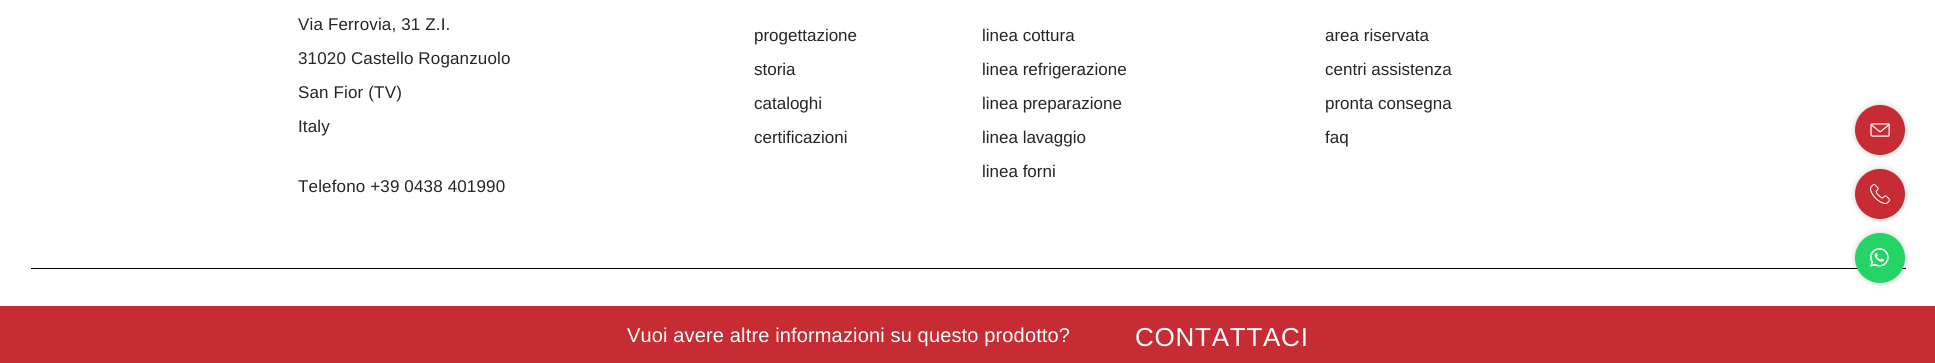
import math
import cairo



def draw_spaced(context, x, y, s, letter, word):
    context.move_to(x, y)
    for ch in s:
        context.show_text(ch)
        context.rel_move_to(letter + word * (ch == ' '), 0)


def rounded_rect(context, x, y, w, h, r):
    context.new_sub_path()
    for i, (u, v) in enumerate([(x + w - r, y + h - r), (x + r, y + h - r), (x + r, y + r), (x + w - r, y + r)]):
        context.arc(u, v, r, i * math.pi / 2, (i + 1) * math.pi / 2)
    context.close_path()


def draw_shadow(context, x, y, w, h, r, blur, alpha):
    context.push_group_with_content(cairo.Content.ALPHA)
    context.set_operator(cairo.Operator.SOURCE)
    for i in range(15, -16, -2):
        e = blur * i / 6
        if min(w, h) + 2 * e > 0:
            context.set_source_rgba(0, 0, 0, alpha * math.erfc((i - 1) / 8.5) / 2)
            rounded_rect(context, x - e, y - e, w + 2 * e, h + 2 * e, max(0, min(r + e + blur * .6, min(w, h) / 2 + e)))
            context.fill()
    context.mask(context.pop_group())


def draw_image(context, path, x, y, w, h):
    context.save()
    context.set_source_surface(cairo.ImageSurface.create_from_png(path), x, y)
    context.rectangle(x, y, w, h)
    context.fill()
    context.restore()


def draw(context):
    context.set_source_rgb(1, 1, 1)
    context.paint()
    context.set_source_rgb(0, 0, 0)
    context.rectangle(31, 268, 1875, 1)
    context.fill()
    context.set_source_rgb(199 / 255, 43 / 255, 51 / 255)
    context.rectangle(0, 306, 1935, 57)
    context.fill()
    context.set_source_rgb(0, 0, 0)
    draw_shadow(context, 1855, 105, 50, 50, 25, 3, 0.2)
    context.set_source_rgb(199 / 255, 43 / 255, 52 / 255)
    context.arc(1880, 130, 25, 0, 2 * math.pi)
    context.fill()
    draw_image(context, "images/1.png", 1870, 123, 20, 14)
    context.set_source_rgb(0, 0, 0)
    draw_shadow(context, 1855, 169, 50, 50, 25, 3, 0.2)
    context.set_source_rgb(199 / 255, 43 / 255, 52 / 255)
    context.arc(1880, 194, 25, 0, 2 * math.pi)
    context.fill()
    draw_image(context, "images/2.png", 1870, 184, 20, 20)
    context.set_source_rgb(0, 0, 0)
    draw_shadow(context, 1855, 233, 50, 50, 25, 3, 0.2)
    context.set_source_rgb(37 / 255, 211 / 255, 102 / 255)
    context.arc(1880, 258, 25, 0, 2 * math.pi)
    context.fill()
    draw_image(context, "images/3.png", 1870, 248, 19, 19)
    context.select_font_face("Liberation Sans")
    context.set_font_size(17)
    context.set_source_rgb(37 / 255, 37 / 255, 37 / 255)
    draw_spaced(context, 298, 30, "Via Ferrovia, 31 Z.I.", 0.15, 0)
    draw_spaced(context, 298, 64, "31020 Castello Roganzuolo", 0.15, 0)
    draw_spaced(context, 298, 98, "San Fior (TV)", 0.15, 0)
    draw_spaced(context, 298, 132, "Italy", 0.15, 0)
    draw_spaced(context, 298, 192, "Telefono +39 0438 401990", 0.15, 0)
    context.move_to(754, 41)
    context.show_text("progettazione")
    context.move_to(754, 75)
    context.show_text("storia")
    context.move_to(754, 109)
    context.show_text("cataloghi")
    context.move_to(754, 143)
    context.show_text("certificazioni")
    context.move_to(982, 41)
    context.show_text("linea cottura")
    context.move_to(982, 75)
    context.show_text("linea refrigerazione")
    context.move_to(982, 109)
    context.show_text("linea preparazione")
    context.move_to(982, 143)
    context.show_text("linea lavaggio")
    context.move_to(982, 177)
    context.show_text("linea forni")
    context.move_to(1325, 41)
    context.show_text("area riservata")
    context.move_to(1325, 75)
    context.show_text("centri assistenza")
    context.move_to(1325, 109)
    context.show_text("pronta consegna")
    context.move_to(1325, 143)
    context.show_text("faq")
    context.set_font_size(20)
    context.set_source_rgb(1, 1, 1)
    draw_spaced(context, 627, 342, "Vuoi avere altre informazioni su questo prodotto?", 0.15, 0)
    context.set_font_size(26)
    draw_spaced(context, 1135, 346, "CONTATTACI", 0.75, 0)


surface = cairo.ImageSurface(cairo.Format.RGB24, 1935, 363)
context = cairo.Context(surface)
options = cairo.FontOptions()
options.set_hint_metrics(cairo.HintMetrics.OFF)
options.set_hint_style(cairo.HintStyle.NONE)
context.set_font_options(options)
context.set_miter_limit(4)
draw(context)
surface.write_to_png("out.png")
